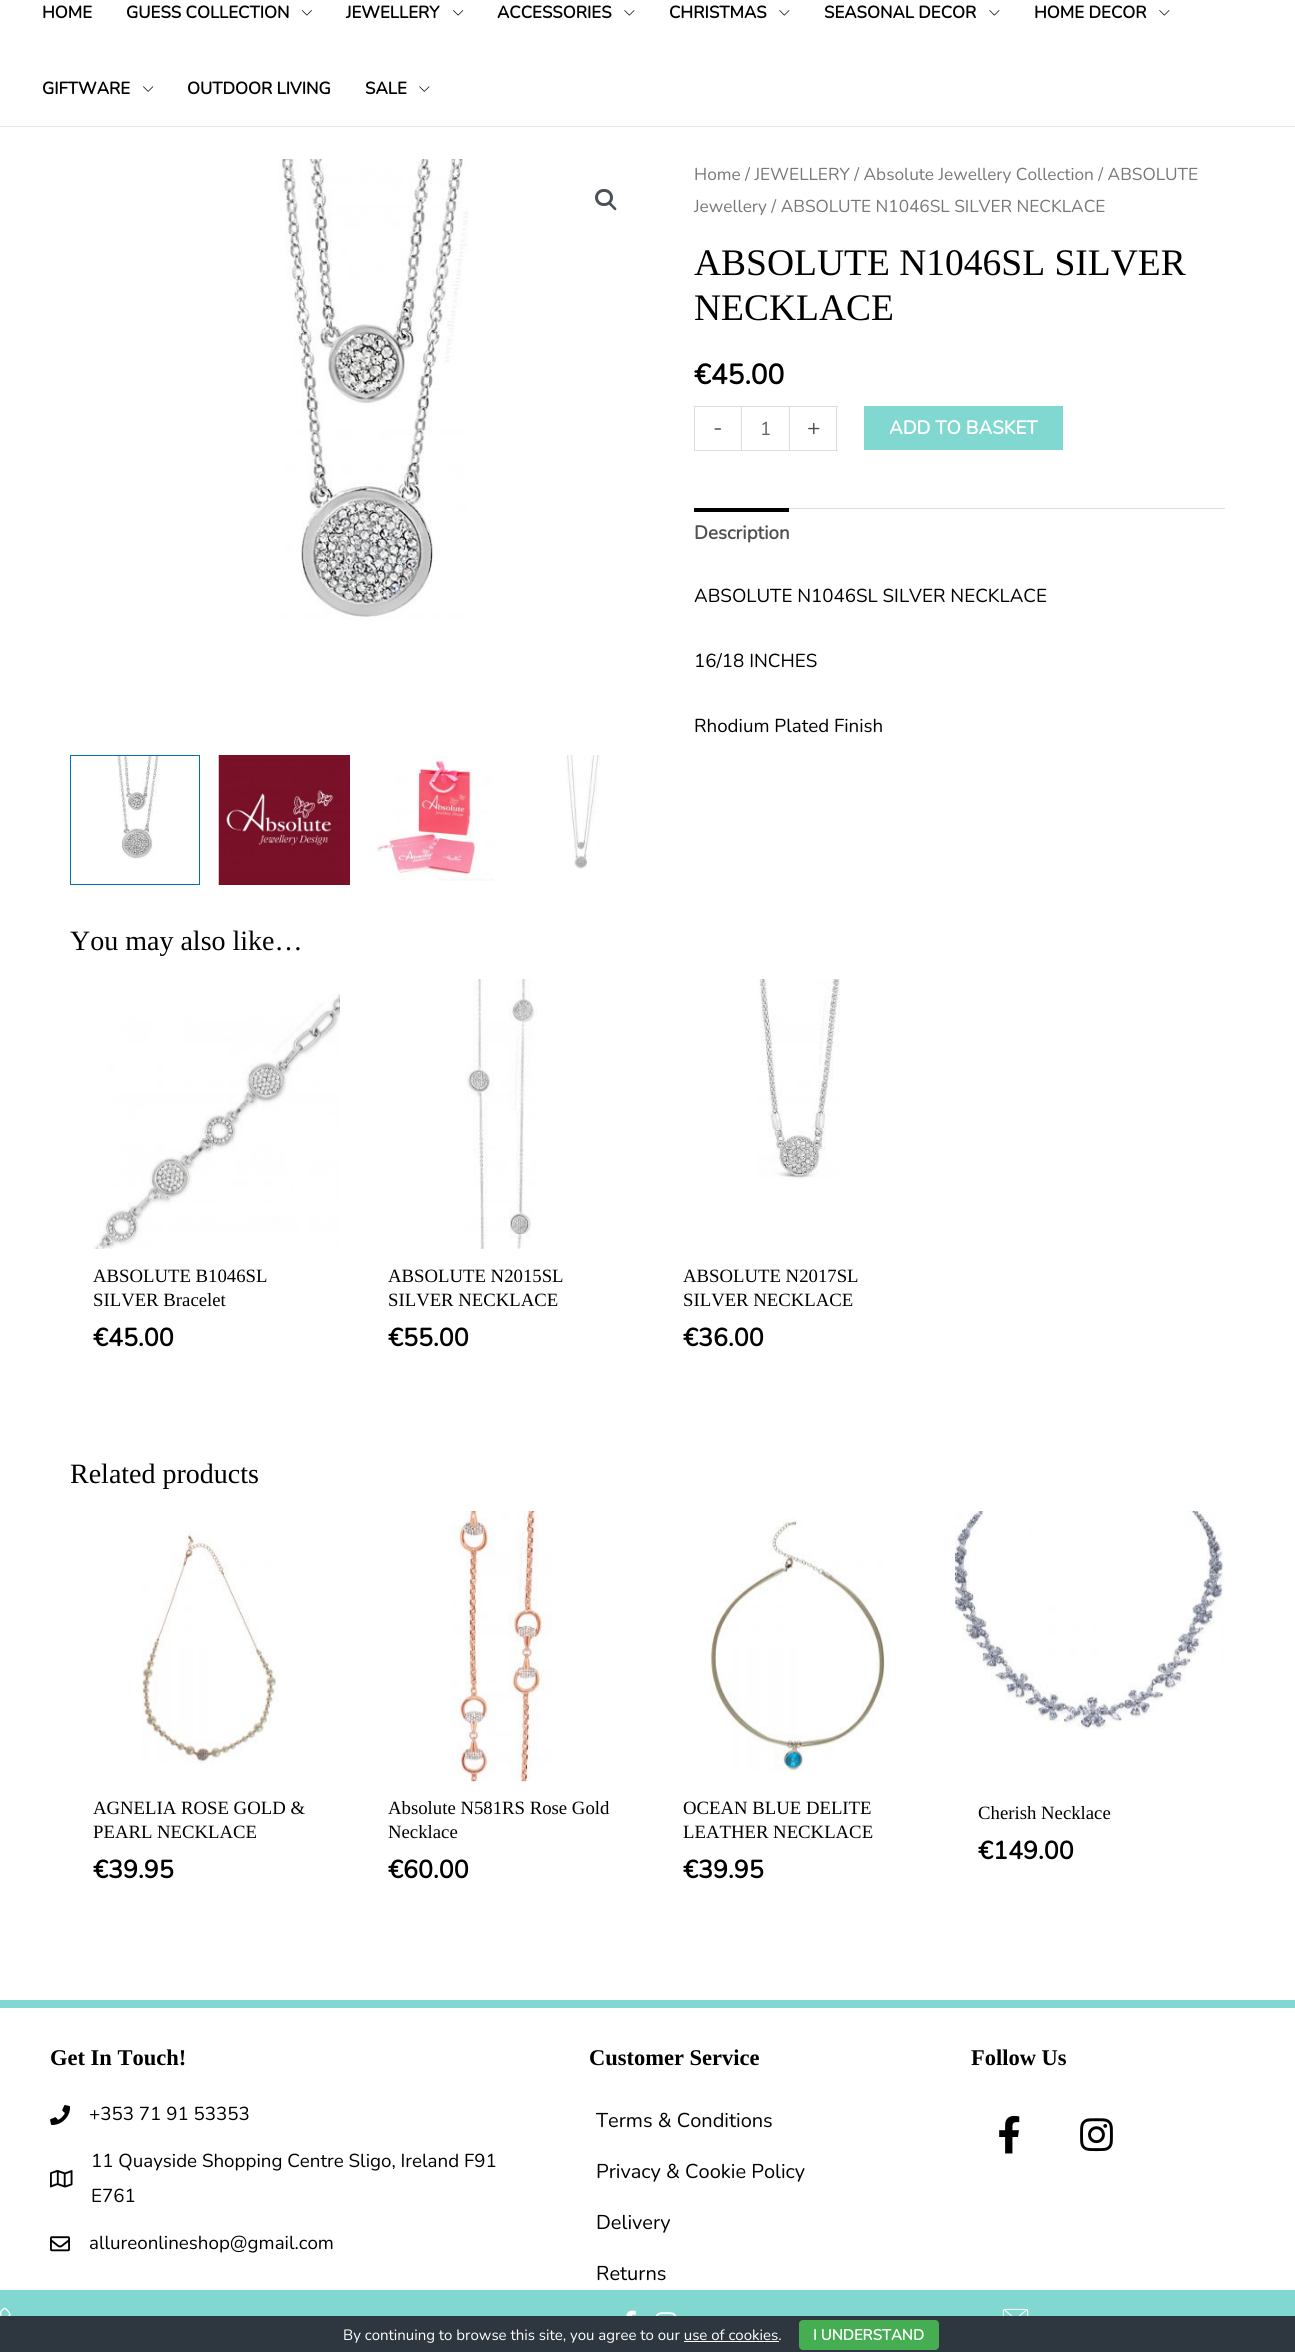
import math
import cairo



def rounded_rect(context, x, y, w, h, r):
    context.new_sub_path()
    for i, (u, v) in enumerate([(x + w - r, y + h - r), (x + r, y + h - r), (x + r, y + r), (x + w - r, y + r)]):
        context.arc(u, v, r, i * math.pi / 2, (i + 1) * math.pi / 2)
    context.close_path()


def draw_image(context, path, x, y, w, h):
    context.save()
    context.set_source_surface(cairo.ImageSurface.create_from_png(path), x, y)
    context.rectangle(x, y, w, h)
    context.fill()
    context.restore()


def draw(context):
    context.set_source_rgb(1, 1, 1)
    context.paint()
    context.set_source_rgb(229 / 255, 229 / 255, 229 / 255)
    context.rectangle(0, 126, 1295, 1)
    context.fill()
    draw_image(context, "images/1.png", 301, 10, 11, 6)
    draw_image(context, "images/2.png", 453, 10, 11, 6)
    draw_image(context, "images/3.png", 624, 10, 11, 6)
    draw_image(context, "images/3.png", 779, 10, 11, 6)
    draw_image(context, "images/3.png", 989, 10, 11, 6)
    draw_image(context, "images/3.png", 1159, 10, 11, 6)
    draw_image(context, "images/4.png", 143, 86, 11, 6)
    draw_image(context, "images/5.png", 419, 86, 11, 6)
    draw_image(context, "images/6.png", 278, 159, 191, 461)
    rounded_rect(context, 596.5, 190.5, 15, 14, 7)
    context.set_source_rgb(75 / 255, 79 / 255, 88 / 255)
    context.set_line_width(3)
    context.stroke()
    context.new_path()
    context.move_to(609, 202.5)
    context.curve_to(610.5, 201.5, 612.5, 204.5, 613.5, 205.5)
    context.curve_to(614, 206, 617.5, 208.5, 616, 210)
    context.curve_to(614.5, 211, 612.5, 208, 611.5, 207)
    context.curve_to(611, 206.5, 607.5, 204, 609, 202.5)
    context.close_path()
    context.fill()
    draw_image(context, "images/7.png", 116, 756, 44, 103)
    context.rectangle(70.5, 755.5, 129, 129)
    context.set_source_rgb(1 / 255, 112 / 255, 185 / 255)
    context.set_line_width(1)
    context.stroke()
    draw_image(context, "images/8.png", 218, 755, 132, 130)
    draw_image(context, "images/9.png", 376, 755, 118, 126)
    draw_image(context, "images/10.png", 566, 755, 34, 114)
    context.set_source_rgb(221 / 255, 221 / 255, 221 / 255)
    context.rectangle(694, 406, 47, 1)
    context.fill()
    context.rectangle(694, 450, 47, 1)
    context.fill()
    context.rectangle(694, 406, 1, 45)
    context.fill()
    context.rectangle(741.5, 406.5, 48, 44)
    context.stroke()
    context.rectangle(790, 406, 48, 1)
    context.fill()
    context.rectangle(836, 406, 1, 45)
    context.fill()
    context.rectangle(790, 450, 48, 1)
    context.fill()
    context.set_source_rgb(129 / 255, 216 / 255, 208 / 255)
    context.rectangle(864, 406, 199, 44)
    context.fill()
    context.set_source_rgb(221 / 255, 221 / 255, 221 / 255)
    context.rectangle(789, 508, 436, 1)
    context.fill()
    context.set_source_rgb(0, 0, 0)
    context.rectangle(694, 508, 95, 4)
    context.fill()
    draw_image(context, "images/11.png", 93, 993, 247, 256)
    draw_image(context, "images/12.png", 466, 979, 71, 270)
    draw_image(context, "images/13.png", 757, 979, 83, 201)
    draw_image(context, "images/14.png", 142, 1530, 137, 234)
    draw_image(context, "images/15.png", 451, 1511, 101, 271)
    draw_image(context, "images/16.png", 703, 1518, 187, 254)
    draw_image(context, "images/17.png", 955, 1511, 269, 219)
    context.set_source_rgb(129 / 255, 216 / 255, 208 / 255)
    context.rectangle(0, 2000, 1295, 8)
    context.fill()
    draw_image(context, "images/18.png", 50, 2105, 20, 20)
    draw_image(context, "images/19.png", 50, 2170, 23, 18)
    draw_image(context, "images/20.png", 50, 2236, 20, 16)
    draw_image(context, "images/21.png", 999, 2115, 21, 39)
    draw_image(context, "images/22.png", 1080, 2118, 33, 34)
    context.rectangle(0, 2290, 1295, 26)
    context.fill()
    draw_image(context, "images/23.png", 0, 2307, 11, 9)
    draw_image(context, "images/24.png", 626, 2310, 10, 6)
    draw_image(context, "images/25.png", 655, 2312, 22, 4)
    draw_image(context, "images/26.png", 1002, 2308, 27, 8)
    context.set_source_rgb(46 / 255, 54 / 255, 63 / 255)
    context.rectangle(0, 2316, 1295, 36)
    context.fill()
    context.set_source_rgb(69 / 255, 174 / 255, 82 / 255)
    rounded_rect(context, 799, 2320, 140, 30, 4)
    context.fill()
    context.set_source_rgb(1, 1, 1)
    context.rectangle(684, 2341, 95, 1)
    context.fill()
    context.select_font_face("Nunito", cairo.FontSlant.NORMAL, cairo.FontWeight.BOLD)
    context.set_font_size(16.9)
    context.set_source_rgb(0, 0, 0)
    context.move_to(42, 18)
    context.show_text("HOME")
    context.move_to(126, 18)
    context.show_text("GUESS COLLECTION")
    context.move_to(346, 18)
    context.show_text("JEWELLERY")
    context.move_to(497, 18)
    context.show_text("ACCESSORIES")
    context.move_to(669, 18)
    context.show_text("CHRISTMAS")
    context.move_to(824, 18)
    context.show_text("SEASONAL DECOR")
    context.move_to(1034, 18)
    context.show_text("HOME DECOR")
    context.move_to(42, 94)
    context.show_text("GIFTWARE")
    context.move_to(187, 94)
    context.show_text("OUTDOOR LIVING")
    context.move_to(365, 94)
    context.show_text("SALE")
    context.select_font_face("Nunito ExtraLight")
    context.set_font_size(17.25)
    context.set_source_rgb(119 / 255, 119 / 255, 119 / 255)
    context.move_to(694, 180)
    context.show_text("Home / JEWELLERY / Absolute Jewellery Collection / ABSOLUTE")
    context.move_to(694, 212)
    context.show_text("Jewellery / ABSOLUTE N1046SL SILVER NECKLACE")
    context.select_font_face("Liberation Serif")
    context.set_font_size(37.5)
    context.set_source_rgb(0, 0, 0)
    context.move_to(694, 275)
    context.show_text("ABSOLUTE N1046SL SILVER")
    context.move_to(694, 320)
    context.show_text("NECKLACE")
    context.select_font_face("Nunito", cairo.FontSlant.NORMAL, cairo.FontWeight.BOLD)
    context.set_font_size(28)
    context.move_to(694, 384)
    context.show_text("€45.00")
    context.select_font_face("Nunito ExtraLight")
    context.set_font_size(22.5)
    context.set_source_rgb(75 / 255, 79 / 255, 88 / 255)
    context.move_to(713, 435)
    context.show_text("-")
    context.set_font_size(18.75)
    context.set_source_rgb(102 / 255, 102 / 255, 102 / 255)
    context.move_to(760, 435)
    context.show_text("1")
    context.set_font_size(22.5)
    context.set_source_rgb(75 / 255, 79 / 255, 88 / 255)
    context.move_to(807, 435)
    context.show_text("+")
    context.select_font_face("Nunito", cairo.FontSlant.NORMAL, cairo.FontWeight.BOLD)
    context.set_font_size(18.75)
    context.set_source_rgb(1, 1, 1)
    context.move_to(889, 434)
    context.show_text("ADD TO BASKET")
    context.set_source_rgb(81 / 255, 81 / 255, 81 / 255)
    context.move_to(694, 539)
    context.show_text("Description")
    context.select_font_face("Nunito ExtraLight")
    context.set_source_rgb(0, 0, 0)
    context.move_to(694, 602)
    context.show_text("ABSOLUTE N1046SL SILVER NECKLACE")
    context.move_to(694, 667)
    context.show_text("16/18 INCHES")
    context.move_to(694, 732)
    context.show_text("Rhodium Plated Finish")
    context.select_font_face("Liberation Serif")
    context.set_font_size(28)
    context.move_to(70, 950)
    context.show_text("You may also like…")
    context.set_font_size(18.75)
    context.move_to(93, 1282)
    context.show_text("ABSOLUTE B1046SL")
    context.move_to(93, 1306)
    context.show_text("SILVER Bracelet")
    context.select_font_face("Nunito", cairo.FontSlant.NORMAL, cairo.FontWeight.BOLD)
    context.set_font_size(25)
    context.move_to(93, 1346)
    context.show_text("€45.00")
    context.select_font_face("Liberation Serif")
    context.set_font_size(18.75)
    context.move_to(388, 1282)
    context.show_text("ABSOLUTE N2015SL")
    context.move_to(388, 1306)
    context.show_text("SILVER NECKLACE")
    context.select_font_face("Nunito", cairo.FontSlant.NORMAL, cairo.FontWeight.BOLD)
    context.set_font_size(25)
    context.move_to(388, 1346)
    context.show_text("€55.00")
    context.select_font_face("Liberation Serif")
    context.set_font_size(18.75)
    context.move_to(683, 1282)
    context.show_text("ABSOLUTE N2017SL")
    context.move_to(683, 1306)
    context.show_text("SILVER NECKLACE")
    context.select_font_face("Nunito", cairo.FontSlant.NORMAL, cairo.FontWeight.BOLD)
    context.set_font_size(25)
    context.move_to(683, 1346)
    context.show_text("€36.00")
    context.select_font_face("Liberation Serif")
    context.set_font_size(28)
    context.move_to(70, 1483)
    context.show_text("Related products")
    context.set_font_size(18.75)
    context.move_to(93, 1814)
    context.show_text("AGNELIA ROSE GOLD &")
    context.move_to(93, 1838)
    context.show_text("PEARL NECKLACE")
    context.select_font_face("Nunito", cairo.FontSlant.NORMAL, cairo.FontWeight.BOLD)
    context.set_font_size(25)
    context.move_to(93, 1878)
    context.show_text("€39.95")
    context.select_font_face("Liberation Serif")
    context.set_font_size(18.75)
    context.move_to(388, 1814)
    context.show_text("Absolute N581RS Rose Gold")
    context.move_to(388, 1838)
    context.show_text("Necklace")
    context.select_font_face("Nunito", cairo.FontSlant.NORMAL, cairo.FontWeight.BOLD)
    context.set_font_size(25)
    context.move_to(388, 1878)
    context.show_text("€60.00")
    context.select_font_face("Liberation Serif")
    context.set_font_size(18.75)
    context.move_to(683, 1814)
    context.show_text("OCEAN BLUE DELITE")
    context.move_to(683, 1838)
    context.show_text("LEATHER NECKLACE")
    context.select_font_face("Nunito", cairo.FontSlant.NORMAL, cairo.FontWeight.BOLD)
    context.set_font_size(25)
    context.move_to(683, 1878)
    context.show_text("€39.95")
    context.select_font_face("Liberation Serif")
    context.set_font_size(18.75)
    context.move_to(978, 1819)
    context.show_text("Cherish Necklace")
    context.select_font_face("Nunito", cairo.FontSlant.NORMAL, cairo.FontWeight.BOLD)
    context.set_font_size(25)
    context.move_to(978, 1859)
    context.show_text("€149.00")
    context.select_font_face("Liberation Serif", cairo.FontSlant.NORMAL, cairo.FontWeight.BOLD)
    context.set_font_size(22.5)
    context.move_to(50, 2065)
    context.show_text("Get In Touch!")
    context.select_font_face("Nunito ExtraLight")
    context.set_font_size(18.75)
    context.move_to(89, 2120)
    context.show_text("+353 71 91 53353")
    context.move_to(91, 2167)
    context.show_text("11 Quayside Shopping Centre Sligo, Ireland F91")
    context.move_to(91, 2202)
    context.show_text("E761")
    context.move_to(89, 2249)
    context.show_text("allureonlineshop@gmail.com")
    context.select_font_face("Liberation Serif", cairo.FontSlant.NORMAL, cairo.FontWeight.BOLD)
    context.set_font_size(22.5)
    context.move_to(589, 2065)
    context.show_text("Customer Service")
    context.select_font_face("Nunito ExtraLight")
    context.set_font_size(20)
    context.move_to(596, 2127)
    context.show_text("Terms & Conditions")
    context.move_to(596, 2178)
    context.show_text("Privacy & Cookie Policy")
    context.move_to(596, 2229)
    context.show_text("Delivery")
    context.move_to(596, 2280)
    context.show_text("Returns")
    context.select_font_face("Liberation Serif", cairo.FontSlant.NORMAL, cairo.FontWeight.BOLD)
    context.set_font_size(22.5)
    context.move_to(971, 2065)
    context.show_text("Follow Us")
    context.select_font_face("Nunito ExtraLight")
    context.set_font_size(15)
    context.set_source_rgb(1, 1, 1)
    context.move_to(343, 2340)
    context.show_text("By continuing to browse this site, you agree to our use of cookies.")
    context.select_font_face("Nunito", cairo.FontSlant.NORMAL, cairo.FontWeight.BOLD)
    context.move_to(813, 2340)
    context.show_text("I UNDERSTAND")


surface = cairo.ImageSurface(cairo.Format.RGB24, 1295, 2352)
context = cairo.Context(surface)
options = cairo.FontOptions()
options.set_hint_metrics(cairo.HintMetrics.OFF)
options.set_hint_style(cairo.HintStyle.NONE)
context.set_font_options(options)
context.set_miter_limit(4)
draw(context)
surface.write_to_png("out.png")
